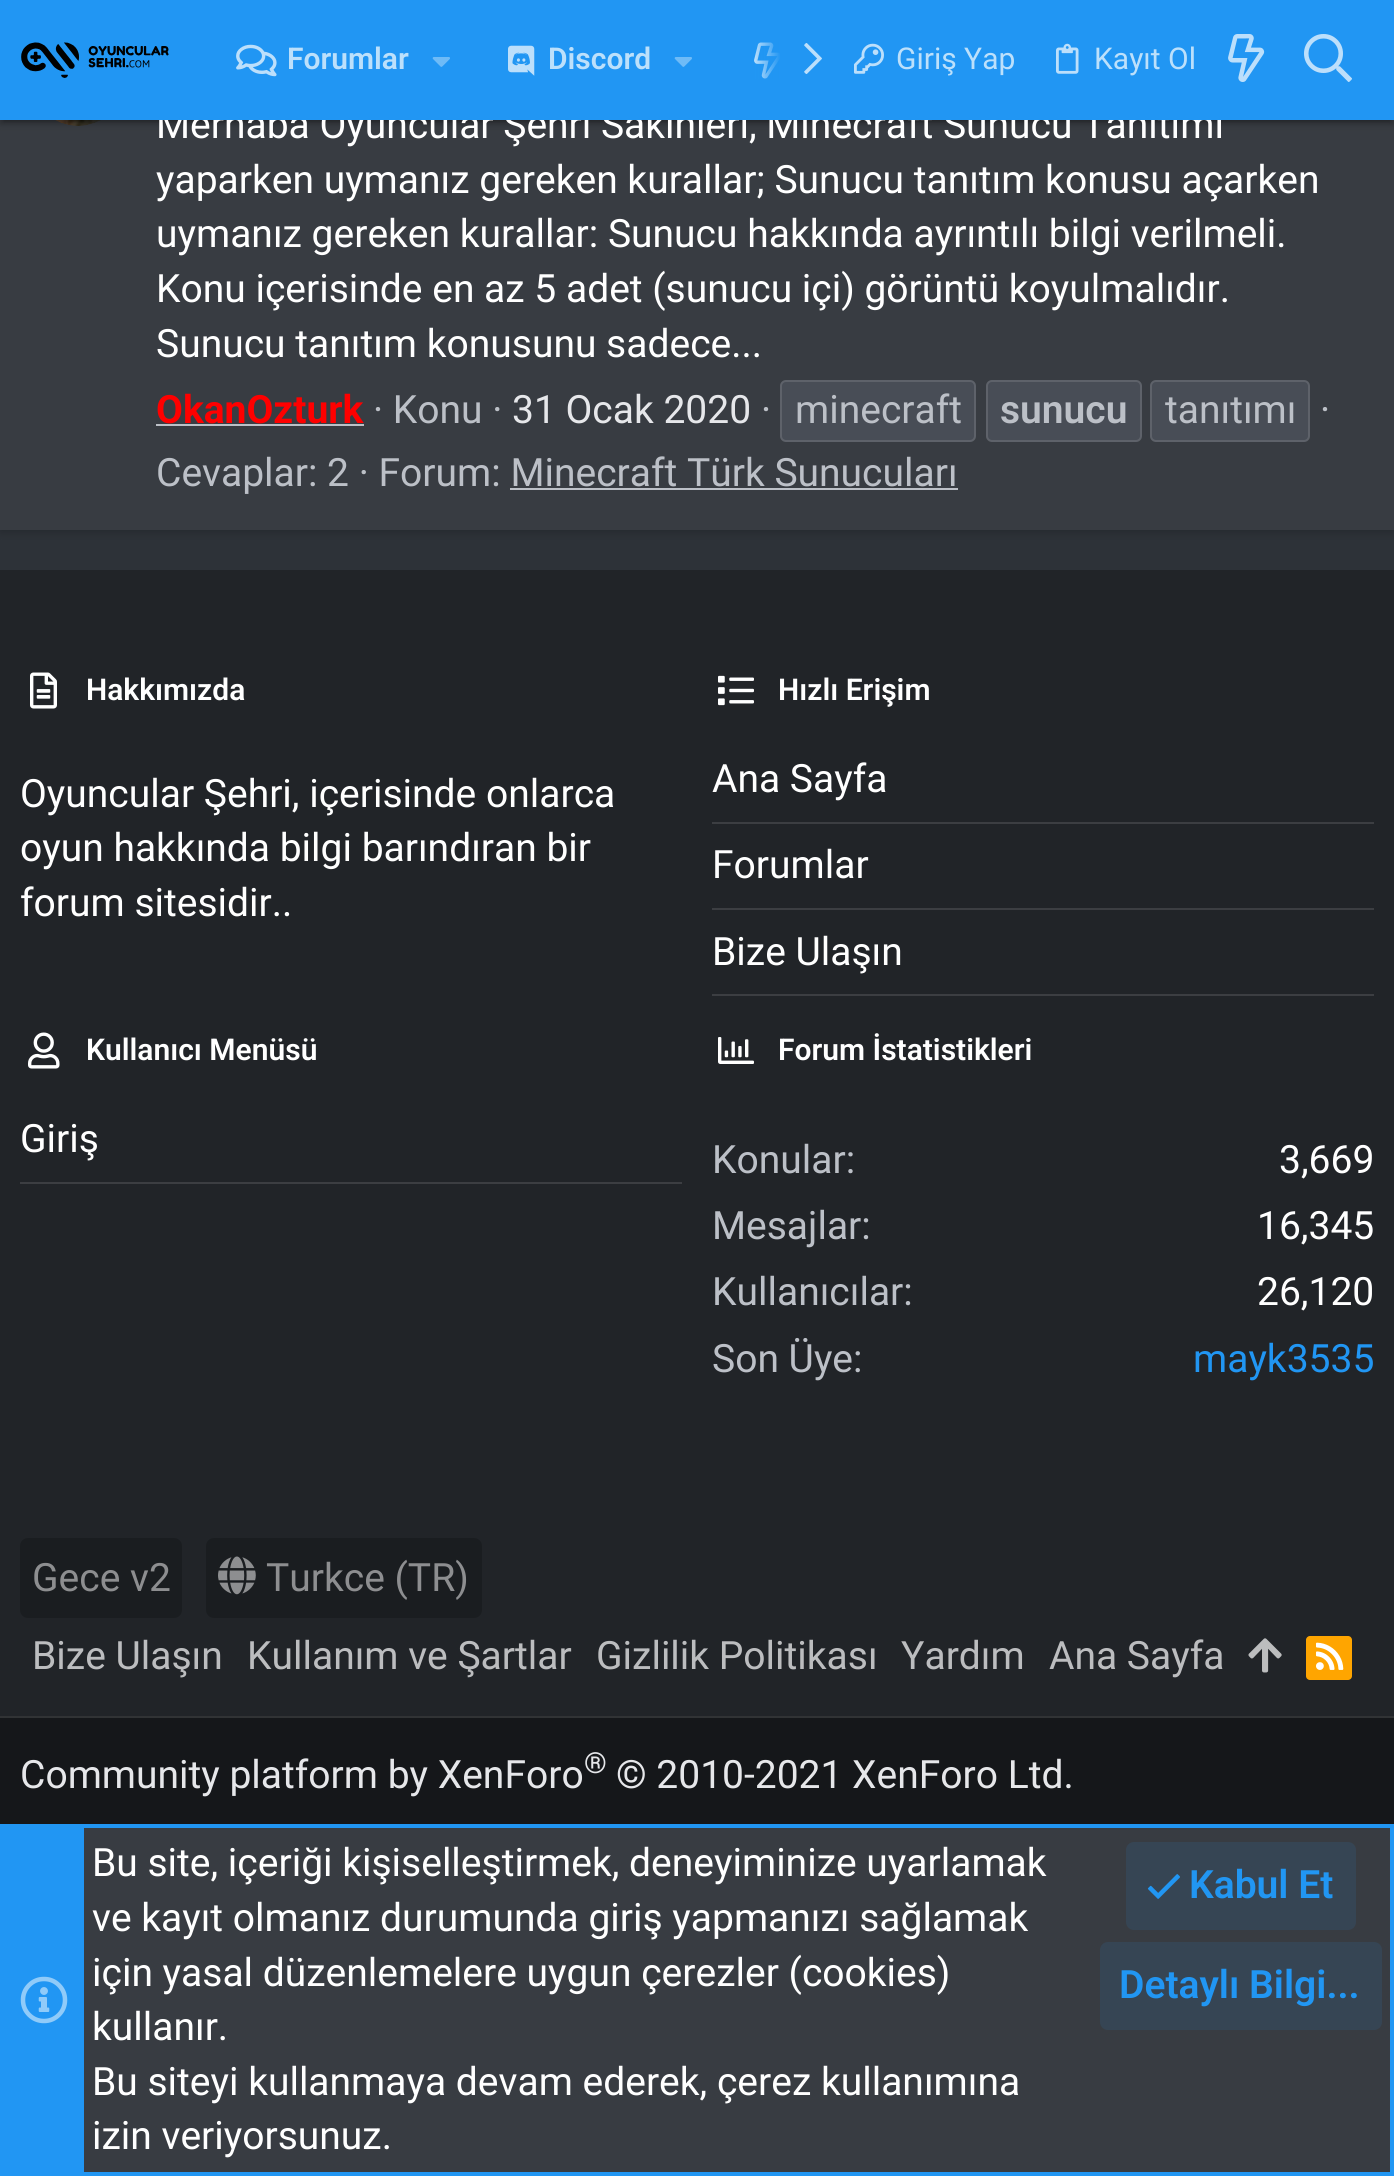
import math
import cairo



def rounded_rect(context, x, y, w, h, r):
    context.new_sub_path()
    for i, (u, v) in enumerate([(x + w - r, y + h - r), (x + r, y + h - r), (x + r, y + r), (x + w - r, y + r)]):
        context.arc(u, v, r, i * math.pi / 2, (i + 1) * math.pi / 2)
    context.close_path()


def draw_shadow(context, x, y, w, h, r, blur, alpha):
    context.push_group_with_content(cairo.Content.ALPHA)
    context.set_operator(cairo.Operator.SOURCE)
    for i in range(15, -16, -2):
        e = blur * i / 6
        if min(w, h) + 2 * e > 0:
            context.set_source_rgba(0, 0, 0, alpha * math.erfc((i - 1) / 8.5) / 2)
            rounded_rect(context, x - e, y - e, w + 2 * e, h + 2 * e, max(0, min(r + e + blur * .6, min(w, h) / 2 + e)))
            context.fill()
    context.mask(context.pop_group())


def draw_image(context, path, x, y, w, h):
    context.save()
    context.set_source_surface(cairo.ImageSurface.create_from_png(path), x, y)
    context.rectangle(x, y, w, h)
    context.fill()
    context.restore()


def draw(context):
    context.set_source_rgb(45 / 255, 50 / 255, 56 / 255)
    context.paint()
    context.set_source_rgb(0, 0, 0)
    draw_shadow(context, 0, -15, 1394, 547, 0, 5, 0.2)
    context.set_source_rgb(56 / 255, 60 / 255, 66 / 255)
    context.rectangle(0, 120, 1394, 410)
    context.fill()
    draw_image(context, "images/11.png", 55, 120, 46, 6)
    context.set_source_rgb(0, 0, 0)
    draw_shadow(context, 0, 2, 1394, 120, 0, 5, 0.2)
    draw_shadow(context, 4, 10, 1386, 112, 0, 1, 0.12)
    draw_shadow(context, 0, 4, 1394, 120, 0, 2, 0.14)
    context.set_source_rgb(188 / 255, 192 / 255, 199 / 255)
    context.rectangle(156, 424, 208, 2)
    context.fill()
    context.set_source_rgb(72 / 255, 77 / 255, 86 / 255)
    rounded_rect(context, 780, 380, 196, 62, 6)
    context.fill()
    rounded_rect(context, 781, 381, 194, 60, 5)
    context.set_source_rgba(1, 1, 1, 0.12)
    context.stroke()
    context.set_source_rgb(72 / 255, 77 / 255, 86 / 255)
    rounded_rect(context, 986, 380, 156, 62, 6)
    context.fill()
    rounded_rect(context, 987, 381, 154, 60, 5)
    context.set_source_rgba(1, 1, 1, 0.12)
    context.stroke()
    context.set_source_rgb(72 / 255, 77 / 255, 86 / 255)
    rounded_rect(context, 1150, 380, 160, 62, 6)
    context.fill()
    rounded_rect(context, 1151, 381, 158, 60, 5)
    context.set_source_rgba(1, 1, 1, 0.12)
    context.stroke()
    context.set_source_rgb(188 / 255, 192 / 255, 199 / 255)
    context.rectangle(510, 488, 448, 2)
    context.fill()
    context.set_source_rgb(33 / 255, 36 / 255, 40 / 255)
    context.rectangle(0, 570, 1394, 1146)
    context.fill()
    draw_image(context, "images/12.png", 30, 672, 27, 37)
    draw_image(context, "images/13.png", 718, 675, 36, 31)
    context.set_source_rgb(60 / 255, 62 / 255, 66 / 255)
    context.rectangle(712, 822, 662, 2)
    context.fill()
    context.rectangle(712, 908, 662, 2)
    context.fill()
    context.rectangle(712, 994, 662, 2)
    context.fill()
    draw_image(context, "images/14.png", 28, 1032, 32, 37)
    context.rectangle(20, 1182, 662, 2)
    context.fill()
    draw_image(context, "images/15.png", 718, 1037, 36, 27)
    context.set_source_rgb(26 / 255, 29 / 255, 32 / 255)
    rounded_rect(context, 20, 1538, 162, 80, 8)
    context.fill()
    rounded_rect(context, 206, 1538, 276, 80, 8)
    context.fill()
    draw_image(context, "images/16.png", 218, 1556, 38, 39)
    draw_image(context, "images/17.png", 1248, 1638, 34, 35)
    context.set_source_rgb(1, 165 / 255, 0)
    rounded_rect(context, 1306, 1636, 46, 44, 4)
    context.fill()
    draw_image(context, "images/18.png", 1316, 1642, 28, 28)
    context.set_source_rgb(21 / 255, 23 / 255, 26 / 255)
    context.rectangle(0, 1718, 1394, 106)
    context.fill()
    context.set_source_rgb(49 / 255, 51 / 255, 53 / 255)
    context.rectangle(0, 1716, 1394, 2)
    context.fill()
    context.set_source_rgb(56 / 255, 60 / 255, 66 / 255)
    context.rectangle(84, 1828, 1306, 344)
    context.fill()
    context.rectangle(2, 1826, 1390, 348)
    context.set_source_rgb(33 / 255, 150 / 255, 243 / 255)
    context.set_line_width(4)
    context.stroke()
    context.rectangle(4, 1828, 80, 344)
    context.fill()
    draw_image(context, "images/19.png", 20, 1976, 48, 48)
    context.set_source_rgb(54 / 255, 69 / 255, 84 / 255)
    rounded_rect(context, 1126, 1842, 230, 88, 8)
    context.fill()
    draw_image(context, "images/20.png", 1147, 1874, 33, 25)
    rounded_rect(context, 1100, 1942, 282, 88, 8)
    context.fill()
    context.select_font_face("Roboto")
    context.set_font_size(39)
    context.set_source_rgb(1, 1, 1)
    context.move_to(156, 138)
    context.show_text("Merhaba Oyuncular Şehri Sakinleri, Minecraft Sunucu Tanıtımı")
    context.set_source_rgb(33 / 255, 150 / 255, 243 / 255)
    context.rectangle(0, 0, 1394, 120)
    context.fill()
    draw_image(context, "images/10.png", 1304, 34, 48, 48)
    context.set_font_size(30)
    context.set_source_rgb(188 / 255, 224 / 255, 251 / 255)
    context.move_to(1094, 69)
    context.show_text("Kayıt Ol")
    draw_image(context, "images/8.png", 1056, 43, 23, 31)
    draw_image(context, "images/6.png", 804, 43, 18, 31)
    draw_image(context, "images/5.png", 754, 42, 26, 37)
    gradient = cairo.LinearGradient(754, 60, 834, 60)
    gradient.add_color_stop_rgba(0, 33 / 255, 150 / 255, 243 / 255, 0)
    gradient.add_color_stop_rgba(0.33, 33 / 255, 150 / 255, 243 / 255, 1)
    context.set_source(gradient)
    context.rectangle(755, 42, 25, 37)
    context.fill()
    draw_image(context, "images/3.png", 674, 57, 18, 10)
    context.select_font_face("Roboto SemiBold")
    context.set_source_rgb(188 / 255, 224 / 255, 251 / 255)
    context.move_to(548, 69)
    context.show_text("Discord")
    draw_image(context, "images/4.png", 508, 45, 27, 31)
    draw_image(context, "images/3.png", 432, 57, 18, 10)
    context.move_to(287, 69)
    context.show_text("Forumlar")
    draw_image(context, "images/2.png", 236, 44, 41, 33)
    draw_image(context, "images/9.png", 1228, 34, 37, 48)
    context.select_font_face("Roboto")
    context.move_to(896, 69)
    context.show_text("Giriş Yap")
    draw_image(context, "images/7.png", 854, 43, 30, 31)
    draw_image(context, "images/1.png", 21, 42, 148, 36)
    context.set_font_size(39)
    context.set_source_rgb(1, 1, 1)
    context.move_to(156, 193)
    context.show_text("yaparken uymanız gereken kurallar; Sunucu tanıtım konusu açarken")
    context.move_to(156, 247)
    context.show_text("uymanız gereken kurallar: Sunucu hakkında ayrıntılı bilgi verilmeli.")
    context.move_to(156, 302)
    context.show_text("Konu içerisinde en az 5 adet (sunucu içi) görüntü koyulmalıdır.")
    context.move_to(156, 357)
    context.show_text("Sunucu tanıtım konusunu sadece...")
    context.select_font_face("Roboto", cairo.FontSlant.NORMAL, cairo.FontWeight.BOLD)
    context.set_source_rgb(1, 0, 0)
    context.move_to(156, 423)
    context.show_text("OkanOzturk")
    context.select_font_face("Roboto")
    context.set_source_rgb(188 / 255, 192 / 255, 199 / 255)
    context.move_to(373, 423)
    context.show_text("· Konu ·")
    context.set_source_rgb(230 / 255, 231 / 255, 234 / 255)
    context.move_to(512, 423)
    context.show_text("31 Ocak 2020")
    context.set_source_rgb(188 / 255, 192 / 255, 199 / 255)
    context.move_to(761, 423)
    context.show_text("·")
    context.move_to(795, 423)
    context.show_text("minecraft")
    context.select_font_face("Roboto SemiBold")
    context.move_to(1000, 423)
    context.show_text("sunucu")
    context.select_font_face("Roboto")
    context.move_to(1165, 423)
    context.show_text("tanıtımı")
    context.move_to(1320, 423)
    context.show_text("·")
    context.move_to(156, 486)
    context.show_text("Cevaplar: 2 · Forum: Minecraft Türk Sunucuları")
    context.select_font_face("Roboto SemiBold")
    context.set_font_size(30)
    context.set_source_rgb(1, 1, 1)
    context.move_to(86, 700)
    context.show_text("Hakkımızda")
    context.select_font_face("Roboto")
    context.set_font_size(39)
    context.move_to(20, 807)
    context.show_text("Oyuncular Şehri, içerisinde onlarca")
    context.move_to(20, 861)
    context.show_text("oyun hakkında bilgi barındıran bir")
    context.move_to(20, 916)
    context.show_text("forum sitesidir..")
    context.select_font_face("Roboto SemiBold")
    context.set_font_size(30)
    context.move_to(778, 700)
    context.show_text("Hızlı Erişim")
    context.select_font_face("Roboto")
    context.set_font_size(39)
    context.move_to(712, 792)
    context.show_text("Ana Sayfa")
    context.move_to(712, 878)
    context.show_text("Forumlar")
    context.move_to(712, 965)
    context.show_text("Bize Ulaşın")
    context.select_font_face("Roboto SemiBold")
    context.set_font_size(30)
    context.move_to(86, 1060)
    context.show_text("Kullanıcı Menüsü")
    context.select_font_face("Roboto")
    context.set_font_size(39)
    context.move_to(20, 1152)
    context.show_text("Giriş")
    context.select_font_face("Roboto SemiBold")
    context.set_font_size(30)
    context.move_to(778, 1060)
    context.show_text("Forum İstatistikleri")
    context.select_font_face("Roboto")
    context.set_font_size(39)
    context.set_source_rgb(188 / 255, 192 / 255, 199 / 255)
    context.move_to(712, 1173)
    context.show_text("Konular:")
    context.set_source_rgb(1, 1, 1)
    context.move_to(1279, 1173)
    context.show_text("3,669")
    context.set_source_rgb(188 / 255, 192 / 255, 199 / 255)
    context.move_to(712, 1239)
    context.show_text("Mesajlar:")
    context.set_source_rgb(1, 1, 1)
    context.move_to(1257, 1239)
    context.show_text("16,345")
    context.set_source_rgb(188 / 255, 192 / 255, 199 / 255)
    context.move_to(712, 1305)
    context.show_text("Kullanıcılar:")
    context.set_source_rgb(1, 1, 1)
    context.move_to(1257, 1305)
    context.show_text("26,120")
    context.set_source_rgb(188 / 255, 192 / 255, 199 / 255)
    context.move_to(712, 1372)
    context.show_text("Son Üye:")
    context.set_source_rgb(33 / 255, 150 / 255, 243 / 255)
    context.move_to(1193, 1372)
    context.show_text("mayk3535")
    context.set_source_rgb(141 / 255, 142 / 255, 144 / 255)
    context.move_to(32, 1591)
    context.show_text("Gece v2")
    context.move_to(266, 1591)
    context.show_text("Turkce (TR)")
    context.set_source_rgb(188 / 255, 189 / 255, 191 / 255)
    context.move_to(32, 1669)
    context.show_text("Bize Ulaşın")
    context.move_to(247, 1669)
    context.show_text("Kullanım ve Şartlar")
    context.move_to(596, 1669)
    context.show_text("Gizlilik Politikası")
    context.move_to(901, 1669)
    context.show_text("Yardım")
    context.move_to(1049, 1669)
    context.show_text("Ana Sayfa")
    context.set_source_rgb(230 / 255, 231 / 255, 234 / 255)
    context.move_to(20, 1788)
    context.show_text("Community platform by XenForo")
    context.set_font_size(29)
    context.move_to(584, 1773)
    context.show_text("®")
    context.set_font_size(39)
    context.move_to(616, 1788)
    context.show_text("© 2010-2021 XenForo Ltd.")
    context.set_source_rgb(1, 1, 1)
    context.move_to(92, 1876)
    context.show_text("Bu site, içeriği kişiselleştirmek, deneyiminize uyarlamak")
    context.move_to(92, 1931)
    context.show_text("ve kayıt olmanız durumunda giriş yapmanızı sağlamak")
    context.move_to(92, 1986)
    context.show_text("için yasal düzenlemelere uygun çerezler (cookies)")
    context.move_to(92, 2040)
    context.show_text("kullanır.")
    context.move_to(92, 2095)
    context.show_text("Bu siteyi kullanmaya devam ederek, çerez kullanımına")
    context.move_to(92, 2149)
    context.show_text("izin veriyorsunuz.")
    context.select_font_face("Roboto SemiBold")
    context.set_source_rgb(33 / 255, 150 / 255, 243 / 255)
    context.move_to(1189, 1898)
    context.show_text("Kabul Et")
    context.move_to(1119, 1998)
    context.show_text("Detaylı Bilgi...")


surface = cairo.ImageSurface(cairo.Format.RGB24, 1394, 2176)
context = cairo.Context(surface)
options = cairo.FontOptions()
options.set_hint_metrics(cairo.HintMetrics.OFF)
options.set_hint_style(cairo.HintStyle.NONE)
context.set_font_options(options)
context.set_miter_limit(4)
draw(context)
surface.write_to_png("out.png")
